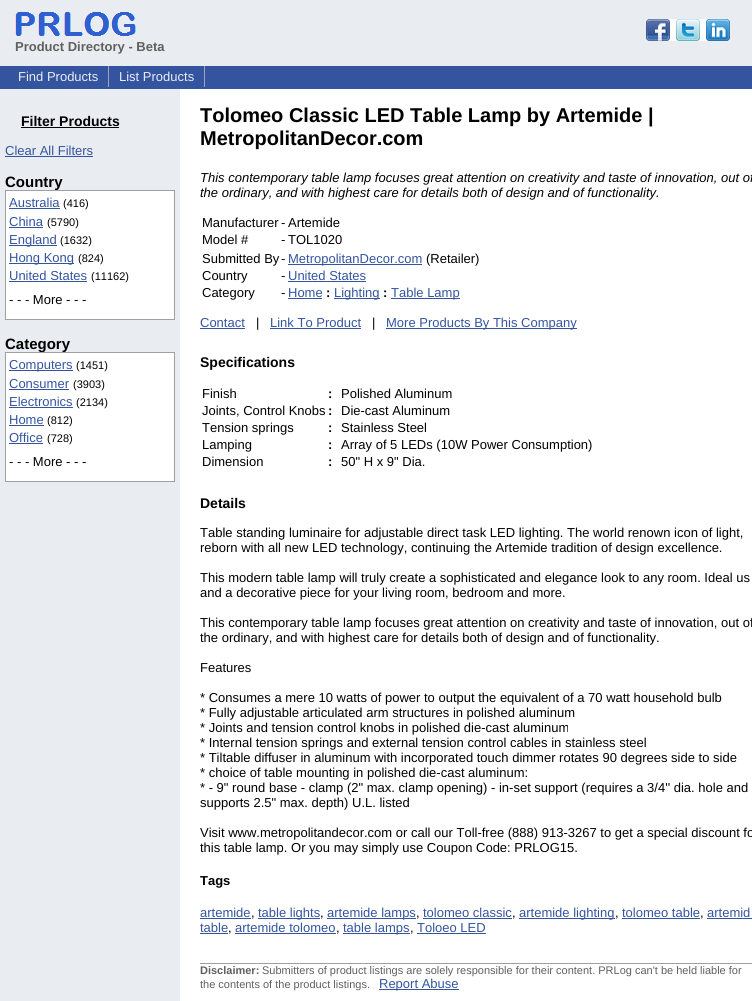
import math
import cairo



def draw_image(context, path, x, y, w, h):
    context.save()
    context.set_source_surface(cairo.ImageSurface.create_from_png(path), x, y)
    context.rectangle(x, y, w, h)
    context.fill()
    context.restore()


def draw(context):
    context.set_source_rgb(1, 1, 1)
    context.paint()
    context.set_source_rgb(233 / 255, 237 / 255, 242 / 255)
    context.rectangle(0, 0, 752, 66)
    context.fill()
    draw_image(context, "images/1.png", 646, 19, 84, 22)
    draw_image(context, "images/2.png", 15, 12, 121, 24)
    context.set_source_rgb(52 / 255, 84 / 255, 160 / 255)
    context.rectangle(0, 66, 752, 23)
    context.fill()
    context.set_source_rgb(160 / 255, 160 / 255, 192 / 255)
    context.rectangle(108, 66, 1, 21)
    context.fill()
    context.rectangle(204, 66, 1, 21)
    context.fill()
    context.set_source_rgb(233 / 255, 237 / 255, 242 / 255)
    context.rectangle(0, 89, 180, 912)
    context.fill()
    context.set_source_rgb(0, 0, 0)
    context.rectangle(21, 127, 98, 1)
    context.fill()
    context.set_source_rgb(52 / 255, 84 / 255, 160 / 255)
    context.rectangle(5, 156, 88, 1)
    context.fill()
    context.rectangle(288, 264, 134, 1)
    context.fill()
    context.rectangle(288, 281, 78, 1)
    context.fill()
    context.rectangle(288, 298, 34, 1)
    context.fill()
    context.rectangle(334, 298, 46, 1)
    context.fill()
    context.rectangle(391, 298, 69, 1)
    context.fill()
    context.rectangle(200, 328, 45, 1)
    context.fill()
    context.rectangle(270, 328, 91, 1)
    context.fill()
    context.rectangle(386, 328, 191, 1)
    context.fill()
    context.rectangle(200, 918, 51, 1)
    context.fill()
    context.rectangle(258, 918, 62, 1)
    context.fill()
    context.rectangle(327, 918, 89, 1)
    context.fill()
    context.rectangle(423, 918, 89, 1)
    context.fill()
    context.rectangle(519, 918, 96, 1)
    context.fill()
    context.rectangle(622, 918, 78, 1)
    context.fill()
    context.rectangle(707, 918, 45, 1)
    context.fill()
    context.rectangle(200, 933, 28, 1)
    context.fill()
    context.rectangle(235, 933, 101, 1)
    context.fill()
    context.rectangle(343, 933, 67, 1)
    context.fill()
    context.rectangle(417, 933, 69, 1)
    context.fill()
    context.set_source_rgb(160 / 255, 160 / 255, 160 / 255)
    context.rectangle(200, 963, 552, 1)
    context.fill()
    context.set_source_rgb(52 / 255, 84 / 255, 160 / 255)
    context.rectangle(379, 989, 80, 1)
    context.fill()
    context.select_font_face("Liberation Sans", cairo.FontSlant.NORMAL, cairo.FontWeight.BOLD)
    context.set_font_size(13)
    context.set_source_rgb(96 / 255, 96 / 255, 96 / 255)
    context.move_to(15, 51)
    context.show_text("Product Directory - Beta")
    context.select_font_face("Liberation Sans")
    context.set_source_rgb(233 / 255, 237 / 255, 242 / 255)
    context.move_to(18, 81)
    context.show_text("Find Products")
    context.move_to(119, 81)
    context.show_text("List Products")
    context.select_font_face("Liberation Sans", cairo.FontSlant.NORMAL, cairo.FontWeight.BOLD)
    context.set_font_size(14)
    context.set_source_rgb(0, 0, 0)
    context.move_to(21, 126)
    context.show_text("Filter Products")
    context.select_font_face("Liberation Sans")
    context.set_font_size(13)
    context.set_source_rgb(52 / 255, 84 / 255, 160 / 255)
    context.move_to(5, 155)
    context.show_text("Clear All Filters")
    context.select_font_face("Liberation Sans", cairo.FontSlant.NORMAL, cairo.FontWeight.BOLD)
    context.set_font_size(15)
    context.set_source_rgb(0, 0, 0)
    context.move_to(5, 187)
    context.show_text("Country")
    context.set_source_rgb(1, 1, 1)
    context.rectangle(5.5, 190.5, 169, 129)
    context.fill_preserve()
    context.set_source_rgb(160 / 255, 160 / 255, 160 / 255)
    context.set_line_width(1)
    context.stroke()
    context.select_font_face("Liberation Sans")
    context.set_font_size(13)
    context.set_source_rgb(52 / 255, 84 / 255, 160 / 255)
    context.move_to(9, 207)
    context.show_text("Australia")
    context.rectangle(9, 208, 51, 1)
    context.fill()
    context.set_font_size(11)
    context.set_source_rgb(0, 0, 0)
    context.move_to(63, 207)
    context.show_text("(416)")
    context.set_font_size(13)
    context.set_source_rgb(52 / 255, 84 / 255, 160 / 255)
    context.move_to(9, 226)
    context.show_text("China")
    context.rectangle(9, 227, 34, 1)
    context.fill()
    context.set_font_size(11)
    context.set_source_rgb(0, 0, 0)
    context.move_to(47, 226)
    context.show_text("(5790)")
    context.set_source_rgb(52 / 255, 84 / 255, 160 / 255)
    context.rectangle(9, 245, 48, 1)
    context.fill()
    context.set_font_size(13)
    context.move_to(9, 244)
    context.show_text("England")
    context.set_font_size(11)
    context.set_source_rgb(0, 0, 0)
    context.move_to(60, 244)
    context.show_text("(1632)")
    context.set_source_rgb(52 / 255, 84 / 255, 160 / 255)
    context.rectangle(9, 263, 65, 1)
    context.fill()
    context.set_font_size(13)
    context.move_to(9, 262)
    context.show_text("Hong Kong")
    context.set_font_size(11)
    context.set_source_rgb(0, 0, 0)
    context.move_to(78, 262)
    context.show_text("(824)")
    context.set_font_size(13)
    context.set_source_rgb(52 / 255, 84 / 255, 160 / 255)
    context.move_to(9, 280)
    context.show_text("United States")
    context.rectangle(9, 281, 78, 1)
    context.fill()
    context.set_font_size(11)
    context.set_source_rgb(0, 0, 0)
    context.move_to(91, 280)
    context.show_text("(11162)")
    context.set_font_size(13)
    context.move_to(9, 304)
    context.show_text("- - - More - - -")
    context.select_font_face("Liberation Sans", cairo.FontSlant.NORMAL, cairo.FontWeight.BOLD)
    context.set_font_size(15)
    context.move_to(5, 349)
    context.show_text("Category")
    context.set_source_rgb(1, 1, 1)
    context.rectangle(5.5, 352.5, 169, 129)
    context.fill_preserve()
    context.set_source_rgb(160 / 255, 160 / 255, 160 / 255)
    context.stroke()
    context.set_source_rgb(52 / 255, 84 / 255, 160 / 255)
    context.rectangle(9, 370, 64, 1)
    context.fill()
    context.select_font_face("Liberation Sans")
    context.set_font_size(13)
    context.move_to(9, 369)
    context.show_text("Computers")
    context.set_font_size(11)
    context.set_source_rgb(0, 0, 0)
    context.move_to(76, 369)
    context.show_text("(1451)")
    context.set_font_size(13)
    context.set_source_rgb(52 / 255, 84 / 255, 160 / 255)
    context.move_to(9, 388)
    context.show_text("Consumer")
    context.rectangle(9, 389, 60, 1)
    context.fill()
    context.set_font_size(11)
    context.set_source_rgb(0, 0, 0)
    context.move_to(73, 388)
    context.show_text("(3903)")
    context.set_font_size(13)
    context.set_source_rgb(52 / 255, 84 / 255, 160 / 255)
    context.move_to(9, 406)
    context.show_text("Electronics")
    context.rectangle(9, 407, 64, 1)
    context.fill()
    context.set_font_size(11)
    context.set_source_rgb(0, 0, 0)
    context.move_to(76, 406)
    context.show_text("(2134)")
    context.set_font_size(13)
    context.set_source_rgb(52 / 255, 84 / 255, 160 / 255)
    context.move_to(9, 424)
    context.show_text("Home")
    context.rectangle(9, 425, 35, 1)
    context.fill()
    context.set_font_size(11)
    context.set_source_rgb(0, 0, 0)
    context.move_to(47, 424)
    context.show_text("(812)")
    context.set_font_size(13)
    context.set_source_rgb(52 / 255, 84 / 255, 160 / 255)
    context.move_to(9, 442)
    context.show_text("Office")
    context.rectangle(9, 443, 34, 1)
    context.fill()
    context.set_font_size(11)
    context.set_source_rgb(0, 0, 0)
    context.move_to(47, 442)
    context.show_text("(728)")
    context.set_font_size(13)
    context.move_to(9, 466)
    context.show_text("- - - More - - -")
    context.select_font_face("Liberation Sans", cairo.FontSlant.NORMAL, cairo.FontWeight.BOLD)
    context.set_font_size(20)
    context.move_to(200, 122)
    context.show_text("Tolomeo Classic LED Table Lamp by Artemide |")
    context.move_to(200, 145)
    context.show_text("MetropolitanDecor.com")
    context.select_font_face("Liberation Sans", cairo.FontSlant.ITALIC)
    context.set_font_size(13)
    context.move_to(200, 182)
    context.show_text("This contemporary table lamp focuses great attention on creativity and taste of innovation, out of")
    context.move_to(200, 197)
    context.show_text("the ordinary, and with highest care for details both of design and of functionality.")
    context.select_font_face("Liberation Sans")
    context.move_to(202, 227)
    context.show_text("Manufacturer")
    context.move_to(281, 227)
    context.show_text("-")
    context.move_to(288, 227)
    context.show_text("Artemide")
    context.move_to(202, 244)
    context.show_text("Model #")
    context.move_to(281, 244)
    context.show_text("-")
    context.move_to(288, 244)
    context.show_text("TOL1020")
    context.move_to(202, 263)
    context.show_text("Submitted By")
    context.move_to(281, 263)
    context.show_text("-")
    context.set_source_rgb(52 / 255, 84 / 255, 160 / 255)
    context.move_to(288, 263)
    context.show_text("MetropolitanDecor.com")
    context.set_source_rgb(0, 0, 0)
    context.move_to(426, 263)
    context.show_text("(Retailer)")
    context.move_to(202, 280)
    context.show_text("Country")
    context.move_to(281, 280)
    context.show_text("-")
    context.set_source_rgb(52 / 255, 84 / 255, 160 / 255)
    context.move_to(288, 280)
    context.show_text("United States")
    context.set_source_rgb(0, 0, 0)
    context.move_to(202, 297)
    context.show_text("Category")
    context.move_to(281, 297)
    context.show_text("-")
    context.set_source_rgb(52 / 255, 84 / 255, 160 / 255)
    context.move_to(288, 297)
    context.show_text("Home")
    context.select_font_face("Liberation Sans", cairo.FontSlant.NORMAL, cairo.FontWeight.BOLD)
    context.set_source_rgb(0, 0, 0)
    context.move_to(326, 297)
    context.show_text(":")
    context.select_font_face("Liberation Sans")
    context.set_source_rgb(52 / 255, 84 / 255, 160 / 255)
    context.move_to(334, 297)
    context.show_text("Lighting")
    context.select_font_face("Liberation Sans", cairo.FontSlant.NORMAL, cairo.FontWeight.BOLD)
    context.set_source_rgb(0, 0, 0)
    context.move_to(383, 297)
    context.show_text(":")
    context.select_font_face("Liberation Sans")
    context.set_source_rgb(52 / 255, 84 / 255, 160 / 255)
    context.move_to(391, 297)
    context.show_text("Table Lamp")
    context.move_to(200, 327)
    context.show_text("Contact")
    context.set_source_rgb(0, 0, 0)
    context.move_to(256, 327)
    context.show_text("|")
    context.set_source_rgb(52 / 255, 84 / 255, 160 / 255)
    context.move_to(270, 327)
    context.show_text("Link To Product")
    context.set_source_rgb(0, 0, 0)
    context.move_to(372, 327)
    context.show_text("|")
    context.set_source_rgb(52 / 255, 84 / 255, 160 / 255)
    context.move_to(386, 327)
    context.show_text("More Products By This Company")
    context.select_font_face("Liberation Sans", cairo.FontSlant.NORMAL, cairo.FontWeight.BOLD)
    context.set_font_size(14)
    context.set_source_rgb(0, 0, 0)
    context.move_to(200, 367)
    context.show_text("Specifications")
    context.select_font_face("Liberation Sans")
    context.set_font_size(13)
    context.move_to(202, 398)
    context.show_text("Finish")
    context.select_font_face("Liberation Sans", cairo.FontSlant.NORMAL, cairo.FontWeight.BOLD)
    context.move_to(328, 398)
    context.show_text(":")
    context.select_font_face("Liberation Sans")
    context.move_to(341, 398)
    context.show_text("Polished Aluminum")
    context.move_to(202, 415)
    context.show_text("Joints, Control Knobs")
    context.select_font_face("Liberation Sans", cairo.FontSlant.NORMAL, cairo.FontWeight.BOLD)
    context.move_to(328, 415)
    context.show_text(":")
    context.select_font_face("Liberation Sans")
    context.move_to(341, 415)
    context.show_text("Die-cast Aluminum")
    context.move_to(202, 432)
    context.show_text("Tension springs")
    context.select_font_face("Liberation Sans", cairo.FontSlant.NORMAL, cairo.FontWeight.BOLD)
    context.move_to(328, 432)
    context.show_text(":")
    context.select_font_face("Liberation Sans")
    context.move_to(341, 432)
    context.show_text("Stainless Steel")
    context.move_to(202, 449)
    context.show_text("Lamping")
    context.select_font_face("Liberation Sans", cairo.FontSlant.NORMAL, cairo.FontWeight.BOLD)
    context.move_to(328, 449)
    context.show_text(":")
    context.select_font_face("Liberation Sans")
    context.move_to(341, 449)
    context.show_text("Array of 5 LEDs (10W Power Consumption)")
    context.move_to(202, 466)
    context.show_text("Dimension")
    context.select_font_face("Liberation Sans", cairo.FontSlant.NORMAL, cairo.FontWeight.BOLD)
    context.move_to(328, 466)
    context.show_text(":")
    context.select_font_face("Liberation Sans")
    context.move_to(341, 466)
    context.show_text("50\" H x 9\" Dia.")
    context.select_font_face("Liberation Sans", cairo.FontSlant.NORMAL, cairo.FontWeight.BOLD)
    context.set_font_size(14)
    context.move_to(200, 508)
    context.show_text("Details")
    context.select_font_face("Liberation Sans")
    context.set_font_size(13)
    context.move_to(200, 537)
    context.show_text("Table standing luminaire for adjustable direct task LED lighting. The world renown icon of light,")
    context.move_to(200, 552)
    context.show_text("reborn with all new LED technology, continuing the Artemide tradition of design excellence.")
    context.move_to(200, 582)
    context.show_text("This modern table lamp will truly create a sophisticated and elegance look to any room. Ideal us")
    context.move_to(200, 597)
    context.show_text("and a decorative piece for your living room, bedroom and more.")
    context.move_to(200, 627)
    context.show_text("This contemporary table lamp focuses great attention on creativity and taste of innovation, out of")
    context.move_to(200, 642)
    context.show_text("the ordinary, and with highest care for details both of design and of functionality.")
    context.move_to(200, 672)
    context.show_text("Features")
    context.move_to(200, 702)
    context.show_text("* Consumes a mere 10 watts of power to output the equivalent of a 70 watt household bulb")
    context.move_to(200, 717)
    context.show_text("* Fully adjustable articulated arm structures in polished aluminum")
    context.move_to(200, 732)
    context.show_text("* Joints and tension control knobs in polished die-cast aluminum")
    context.move_to(200, 747)
    context.show_text("* Internal tension springs and external tension control cables in stainless steel")
    context.move_to(200, 762)
    context.show_text("* Tiltable diffuser in aluminum with incorporated touch dimmer rotates 90 degrees side to side")
    context.move_to(200, 777)
    context.show_text("* choice of table mounting in polished die-cast aluminum:")
    context.move_to(200, 792)
    context.show_text("* - 9\" round base - clamp (2\" max. clamp opening) - in-set support (requires a 3/4'' dia. hole and")
    context.move_to(200, 807)
    context.show_text("supports 2.5\" max. depth) U.L. listed")
    context.move_to(200, 837)
    context.show_text("Visit www.metropolitandecor.com or call our Toll-free (888) 913-3267 to get a special discount fo")
    context.move_to(200, 852)
    context.show_text("this table lamp. Or you may simply use Coupon Code: PRLOG15.")
    context.select_font_face("Liberation Sans", cairo.FontSlant.NORMAL, cairo.FontWeight.BOLD)
    context.move_to(200, 885)
    context.show_text("Tags")
    context.select_font_face("Liberation Sans")
    context.set_source_rgb(52 / 255, 84 / 255, 160 / 255)
    context.move_to(200, 917)
    context.show_text("artemide")
    context.set_source_rgb(0, 0, 0)
    context.move_to(251, 917)
    context.show_text(",")
    context.set_source_rgb(52 / 255, 84 / 255, 160 / 255)
    context.move_to(258, 917)
    context.show_text("table lights")
    context.set_source_rgb(0, 0, 0)
    context.move_to(320, 917)
    context.show_text(",")
    context.set_source_rgb(52 / 255, 84 / 255, 160 / 255)
    context.move_to(327, 917)
    context.show_text("artemide lamps")
    context.set_source_rgb(0, 0, 0)
    context.move_to(416, 917)
    context.show_text(",")
    context.set_source_rgb(52 / 255, 84 / 255, 160 / 255)
    context.move_to(423, 917)
    context.show_text("tolomeo classic")
    context.set_source_rgb(0, 0, 0)
    context.move_to(512, 917)
    context.show_text(",")
    context.set_source_rgb(52 / 255, 84 / 255, 160 / 255)
    context.move_to(519, 917)
    context.show_text("artemide lighting")
    context.set_source_rgb(0, 0, 0)
    context.move_to(615, 917)
    context.show_text(",")
    context.set_source_rgb(52 / 255, 84 / 255, 160 / 255)
    context.move_to(622, 917)
    context.show_text("tolomeo table")
    context.set_source_rgb(0, 0, 0)
    context.move_to(700, 917)
    context.show_text(",")
    context.set_source_rgb(52 / 255, 84 / 255, 160 / 255)
    context.move_to(707, 917)
    context.show_text("artemid")
    context.move_to(200, 932)
    context.show_text("table")
    context.set_source_rgb(0, 0, 0)
    context.move_to(228, 932)
    context.show_text(",")
    context.set_source_rgb(52 / 255, 84 / 255, 160 / 255)
    context.move_to(235, 932)
    context.show_text("artemide tolomeo")
    context.set_source_rgb(0, 0, 0)
    context.move_to(336, 932)
    context.show_text(",")
    context.set_source_rgb(52 / 255, 84 / 255, 160 / 255)
    context.move_to(343, 932)
    context.show_text("table lamps")
    context.set_source_rgb(0, 0, 0)
    context.move_to(410, 932)
    context.show_text(",")
    context.set_source_rgb(52 / 255, 84 / 255, 160 / 255)
    context.move_to(417, 932)
    context.show_text("Toloeo LED")
    context.select_font_face("Liberation Sans", cairo.FontSlant.NORMAL, cairo.FontWeight.BOLD)
    context.set_font_size(11)
    context.set_source_rgb(96 / 255, 96 / 255, 96 / 255)
    context.move_to(200, 974)
    context.show_text("Disclaimer:")
    context.select_font_face("Liberation Sans")
    context.move_to(262, 974)
    context.show_text("Submitters of product listings are solely responsible for their content. PRLog can't be held liable for")
    context.move_to(200, 988)
    context.show_text("the contents of the product listings.")
    context.set_font_size(13)
    context.set_source_rgb(52 / 255, 84 / 255, 160 / 255)
    context.move_to(379, 988)
    context.show_text("Report Abuse")


surface = cairo.ImageSurface(cairo.Format.RGB24, 752, 1001)
context = cairo.Context(surface)
options = cairo.FontOptions()
options.set_hint_metrics(cairo.HintMetrics.OFF)
options.set_hint_style(cairo.HintStyle.NONE)
context.set_font_options(options)
context.set_miter_limit(4)
draw(context)
surface.write_to_png("out.png")
